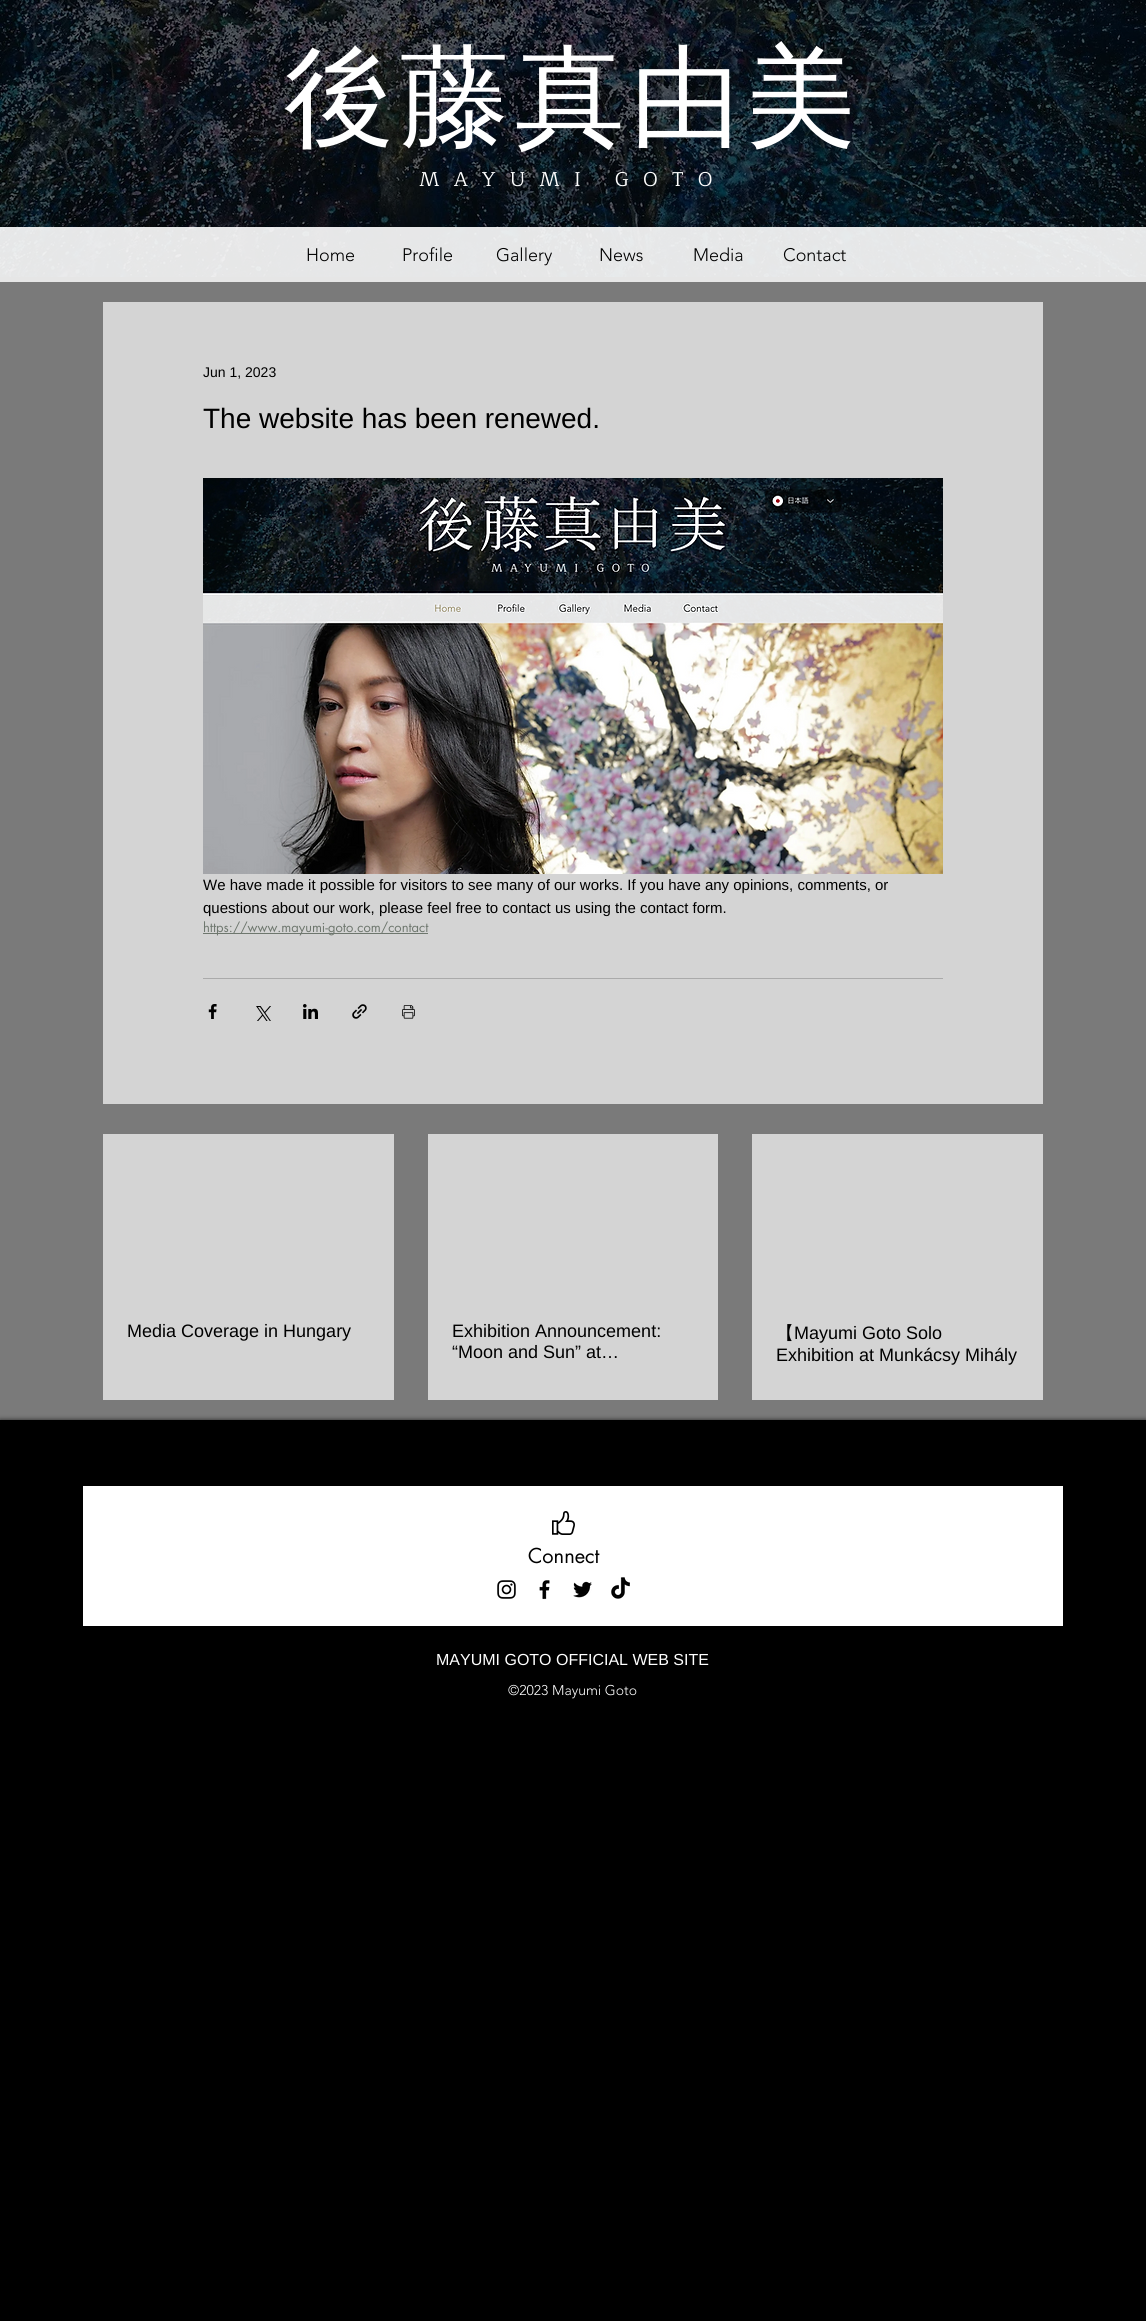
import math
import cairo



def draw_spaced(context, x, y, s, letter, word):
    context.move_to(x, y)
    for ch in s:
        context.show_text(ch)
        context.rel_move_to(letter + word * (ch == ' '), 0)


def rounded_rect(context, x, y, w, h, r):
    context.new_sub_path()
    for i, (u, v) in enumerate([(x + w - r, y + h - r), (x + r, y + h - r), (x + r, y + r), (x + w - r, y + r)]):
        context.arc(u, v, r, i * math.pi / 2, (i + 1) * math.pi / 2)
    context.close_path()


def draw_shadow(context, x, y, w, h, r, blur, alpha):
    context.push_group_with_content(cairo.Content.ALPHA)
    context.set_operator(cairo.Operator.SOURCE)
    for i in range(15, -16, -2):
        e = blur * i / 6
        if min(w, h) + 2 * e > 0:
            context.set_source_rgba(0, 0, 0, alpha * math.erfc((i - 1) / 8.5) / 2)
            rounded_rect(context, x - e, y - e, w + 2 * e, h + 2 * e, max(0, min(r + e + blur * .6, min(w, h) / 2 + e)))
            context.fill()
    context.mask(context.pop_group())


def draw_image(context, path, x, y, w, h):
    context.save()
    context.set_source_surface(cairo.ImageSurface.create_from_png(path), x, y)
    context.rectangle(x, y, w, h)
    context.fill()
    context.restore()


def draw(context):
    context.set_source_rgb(0, 0, 0)
    context.paint()
    draw_image(context, "images/1.png", 0, 0, 1146, 277)
    context.set_source_rgba(1, 1, 1, 0.9)
    context.rectangle(0, 227, 1146, 55)
    context.fill()
    context.set_source_rgb(122 / 255, 122 / 255, 122 / 255)
    context.rectangle(0, 282, 1146, 1138)
    context.fill()
    context.set_source_rgb(212 / 255, 212 / 255, 212 / 255)
    context.rectangle(103, 302, 940, 802)
    context.fill()
    draw_image(context, "images/2.png", 203, 478, 740, 396)
    context.set_source_rgb(110 / 255, 119 / 255, 110 / 255)
    context.rectangle(203, 933, 225, 1)
    context.fill()
    context.set_source_rgb(170 / 255, 170 / 255, 170 / 255)
    context.rectangle(203, 978, 740, 1)
    context.fill()
    draw_image(context, "images/3.png", 208, 1004, 9, 15)
    draw_image(context, "images/4.png", 256, 1006, 15, 15)
    draw_image(context, "images/5.png", 303, 1004, 15, 15)
    draw_image(context, "images/6.png", 352, 1004, 15, 15)
    draw_image(context, "images/7.png", 402, 1005, 13, 14)
    context.set_source_rgb(212 / 255, 212 / 255, 212 / 255)
    context.rectangle(103, 1134, 291, 266)
    context.fill()
    context.rectangle(428, 1134, 290, 266)
    context.fill()
    context.rectangle(752, 1134, 291, 266)
    context.fill()
    context.save()
    context.set_fill_rule(cairo.FillRule.EVEN_ODD)
    context.new_path()
    context.move_to(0, 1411)
    context.line_to(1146, 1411)
    context.line_to(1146, 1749)
    context.line_to(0, 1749)
    context.close_path()
    context.move_to(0, 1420)
    context.line_to(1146, 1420)
    context.line_to(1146, 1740)
    context.line_to(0, 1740)
    context.close_path()
    context.clip()
    context.set_source_rgb(0, 0, 0)
    draw_shadow(context, 0, 1420, 1146, 320, 0, 2.5, 0.7)
    context.restore()
    context.set_source_rgb(1, 1, 1)
    context.rectangle(83, 1486, 980, 140)
    context.fill()
    draw_image(context, "images/8.png", 552, 1511, 23, 24)
    draw_image(context, "images/9.png", 497, 1580, 19, 19)
    draw_image(context, "images/10.png", 539, 1580, 11, 20)
    draw_image(context, "images/11.png", 573, 1581, 19, 17)
    draw_image(context, "images/12.png", 611, 1577, 19, 22)
    context.select_font_face("WenQuanYi Zen Hei Medium")
    context.set_font_size(110)
    draw_spaced(context, 284, 135, "後藤真由美", 5.5, 0)
    context.select_font_face("Maitree")
    context.set_font_size(20)
    draw_spaced(context, 419, 186, "MAYUMI GOTO", 14, 0)
    context.select_font_face("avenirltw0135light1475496 Light")
    context.set_font_size(18)
    context.set_source_rgb(0, 0, 0)
    context.move_to(306, 261)
    context.show_text("Home")
    context.move_to(402, 261)
    context.show_text("Profile")
    context.move_to(496, 261)
    context.show_text("Gallery")
    context.move_to(599, 261)
    context.show_text("News")
    context.move_to(693, 261)
    context.show_text("Media")
    context.move_to(783, 261)
    context.show_text("Contact")
    context.select_font_face("Liberation Sans")
    context.set_font_size(14)
    context.move_to(203, 377)
    context.show_text("Jun 1, 2023")
    context.set_font_size(28)
    context.move_to(203, 428)
    context.show_text("The website has been renewed.")
    context.set_font_size(15)
    context.move_to(203, 890)
    context.show_text("We have made it possible for visitors to see many of our works. If you have any opinions, comments, or")
    context.move_to(203, 913)
    context.show_text("questions about our work, please feel free to contact us using the contact form.")
    context.select_font_face("futura")
    context.set_font_size(13)
    context.set_source_rgb(110 / 255, 119 / 255, 110 / 255)
    context.move_to(203, 932)
    context.show_text("https://www.mayumi-goto.com/contact")
    context.select_font_face("Liberation Sans")
    context.set_font_size(18)
    context.set_source_rgb(0, 0, 0)
    context.move_to(127, 1337)
    context.show_text("Media Coverage in Hungary")
    context.move_to(452, 1337)
    context.show_text("Exhibition Announcement:")
    context.move_to(452, 1358)
    context.show_text("“Moon and Sun” at…")
    context.select_font_face("WenQuanYi Zen Hei Medium")
    context.move_to(776, 1339)
    context.show_text("【")
    context.select_font_face("Liberation Sans")
    context.move_to(794, 1339)
    context.show_text("Mayumi Goto Solo")
    context.move_to(776, 1361)
    context.show_text("Exhibition at Munkácsy Mihály")
    context.select_font_face("futura")
    context.set_font_size(20)
    context.move_to(528, 1563)
    context.show_text("Connect")
    context.select_font_face("Liberation Sans")
    context.set_font_size(16)
    context.set_source_rgb(1, 1, 1)
    context.move_to(436, 1665)
    context.show_text("MAYUMI GOTO OFFICIAL WEB SITE")
    context.select_font_face("avenirltw0135light1475496 Light")
    context.set_font_size(14)
    context.move_to(508, 1695)
    context.show_text("©2023 Mayumi Goto")


surface = cairo.ImageSurface(cairo.Format.RGB24, 1146, 2321)
context = cairo.Context(surface)
options = cairo.FontOptions()
options.set_hint_metrics(cairo.HintMetrics.OFF)
options.set_hint_style(cairo.HintStyle.NONE)
context.set_font_options(options)
context.set_miter_limit(4)
draw(context)
surface.write_to_png("out.png")
